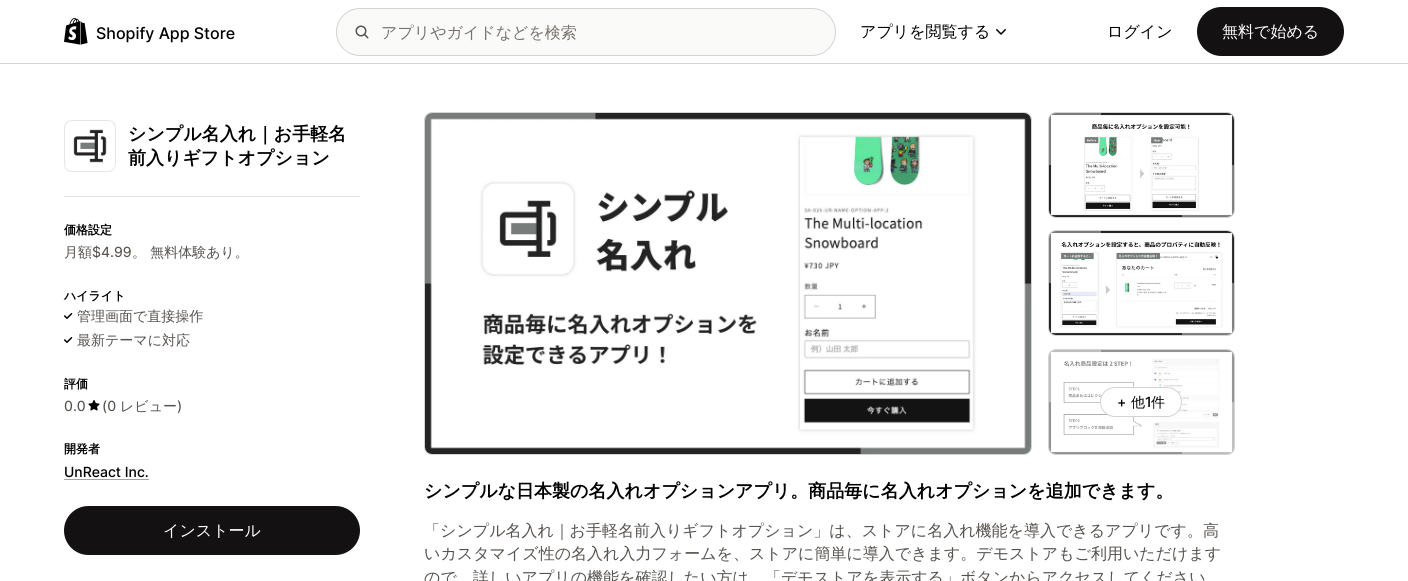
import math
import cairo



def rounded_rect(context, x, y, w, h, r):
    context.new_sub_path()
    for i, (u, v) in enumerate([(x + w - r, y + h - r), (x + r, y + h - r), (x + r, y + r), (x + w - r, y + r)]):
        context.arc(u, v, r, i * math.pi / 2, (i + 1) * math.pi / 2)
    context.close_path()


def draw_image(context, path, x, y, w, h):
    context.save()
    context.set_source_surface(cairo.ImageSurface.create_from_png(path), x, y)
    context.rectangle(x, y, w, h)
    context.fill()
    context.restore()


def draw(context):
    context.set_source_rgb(1, 1, 1)
    context.paint()
    context.set_source_rgb(214 / 255, 211 / 255, 209 / 255)
    context.rectangle(0, 63, 1408, 1)
    context.fill()
    draw_image(context, "images/1.png", 64, 18, 24, 27)
    context.set_source_rgb(250 / 255, 250 / 255, 249 / 255)
    rounded_rect(context, 336.5, 8.5, 499, 47, 23.5)
    context.fill_preserve()
    context.set_source_rgb(214 / 255, 211 / 255, 209 / 255)
    context.set_line_width(1)
    context.stroke()
    draw_image(context, "images/2.png", 355, 25, 14, 14)
    draw_image(context, "images/3.png", 996, 29, 10, 6)
    context.set_source_rgb(19 / 255, 17 / 255, 17 / 255)
    rounded_rect(context, 1197, 7, 147, 49, 24.5)
    context.fill()
    draw_image(context, "images/4.png", 73, 129, 34, 34)
    rounded_rect(context, 64.5, 120.5, 51, 51, 7.5)
    context.set_source_rgb(230 / 255, 230 / 255, 230 / 255)
    context.stroke()
    context.set_source_rgb(231 / 255, 229 / 255, 228 / 255)
    context.rectangle(64, 196, 296, 1)
    context.fill()
    draw_image(context, "images/5.png", 64, 313, 9, 6)
    draw_image(context, "images/5.png", 64, 337, 9, 6)
    draw_image(context, "images/6.png", 88, 400, 12, 11)
    context.set_source_rgb(168 / 255, 162 / 255, 159 / 255)
    context.rectangle(64, 479, 85, 1)
    context.fill()
    context.set_source_rgb(19 / 255, 17 / 255, 17 / 255)
    rounded_rect(context, 64, 506, 296, 49, 24.5)
    context.fill()
    rounded_rect(context, 424.5, 112.5, 607, 342, 7.5)
    context.set_source_rgb(214 / 255, 211 / 255, 209 / 255)
    context.stroke()
    draw_image(context, "images/7.png", 425, 113, 606, 341)
    rounded_rect(context, 1048.5, 112.5, 186, 105, 7.5)
    context.stroke()
    draw_image(context, "images/8.png", 1049, 113, 185, 104)
    rounded_rect(context, 1048.5, 230.5, 186, 105, 7.5)
    context.stroke()
    draw_image(context, "images/9.png", 1049, 231, 185, 104)
    rounded_rect(context, 1048.5, 349.5, 186, 105, 7.5)
    context.stroke()
    draw_image(context, "images/10.png", 1049, 350, 185, 104)
    context.set_source_rgb(1, 1, 1)
    rounded_rect(context, 1100.5, 387.5, 81, 29, 14.5)
    context.fill_preserve()
    context.set_source_rgb(214 / 255, 211 / 255, 209 / 255)
    context.stroke()
    context.select_font_face("Inter Medium")
    context.set_font_size(16)
    context.set_source_rgb(0, 0, 0)
    context.move_to(96, 39)
    context.show_text("Shopify App Store")
    context.select_font_face("WenQuanYi Zen Hei Medium")
    context.set_source_rgb(120 / 255, 114 / 255, 109 / 255)
    context.move_to(381, 38)
    context.show_text("アプリやガイドなどを検索")
    context.set_source_rgb(0, 0, 0)
    context.move_to(860, 37)
    context.show_text("アプリを閲覧する")
    context.move_to(1107, 37)
    context.show_text("ログイン")
    context.set_source_rgb(1, 1, 1)
    context.move_to(1222, 37)
    context.show_text("無料で始める")
    context.select_font_face("WenQuanYi Zen Hei", cairo.FontSlant.NORMAL, cairo.FontWeight.BOLD)
    context.set_font_size(18)
    context.set_source_rgb(0, 0, 0)
    context.move_to(128, 140)
    context.show_text("シンプル名入れ｜お手軽名")
    context.move_to(128, 164)
    context.show_text("前入りギフトオプション")
    context.set_font_size(12)
    context.move_to(64, 234)
    context.show_text("価格設定")
    context.select_font_face("WenQuanYi Zen Hei Medium")
    context.set_font_size(14)
    context.set_source_rgb(86 / 255, 82 / 255, 78 / 255)
    context.move_to(64, 257)
    context.show_text("月額")
    context.select_font_face("Inter")
    context.move_to(92, 257)
    context.show_text("$4.99")
    context.select_font_face("WenQuanYi Zen Hei Medium")
    context.move_to(132, 257)
    context.show_text("。 無料体験あり。")
    context.select_font_face("WenQuanYi Zen Hei", cairo.FontSlant.NORMAL, cairo.FontWeight.BOLD)
    context.set_font_size(12)
    context.set_source_rgb(0, 0, 0)
    context.move_to(64, 300)
    context.show_text("ハイライト")
    context.select_font_face("WenQuanYi Zen Hei Medium")
    context.set_font_size(14)
    context.set_source_rgb(86 / 255, 82 / 255, 78 / 255)
    context.move_to(77, 321)
    context.show_text("管理画面で直接操作")
    context.move_to(77, 345)
    context.show_text("最新テーマに対応")
    context.select_font_face("WenQuanYi Zen Hei", cairo.FontSlant.NORMAL, cairo.FontWeight.BOLD)
    context.set_font_size(12)
    context.set_source_rgb(0, 0, 0)
    context.move_to(64, 388)
    context.show_text("評価")
    context.select_font_face("Inter")
    context.set_font_size(14)
    context.set_source_rgb(86 / 255, 82 / 255, 78 / 255)
    context.move_to(64, 411)
    context.show_text("0.0")
    context.move_to(102, 411)
    context.show_text("(0")
    context.select_font_face("WenQuanYi Zen Hei Medium")
    context.move_to(120, 411)
    context.show_text("レビュー")
    context.select_font_face("Inter")
    context.move_to(177, 411)
    context.show_text(")")
    context.select_font_face("WenQuanYi Zen Hei", cairo.FontSlant.NORMAL, cairo.FontWeight.BOLD)
    context.set_font_size(12)
    context.set_source_rgb(0, 0, 0)
    context.move_to(64, 453)
    context.show_text("開発者")
    context.select_font_face("Inter Medium")
    context.set_font_size(14)
    context.move_to(64, 477)
    context.show_text("UnReact Inc.")
    context.select_font_face("WenQuanYi Zen Hei Medium")
    context.set_font_size(16)
    context.set_source_rgb(1, 1, 1)
    context.move_to(163, 536)
    context.show_text("インストール")
    context.select_font_face("Inter Medium")
    context.set_font_size(14)
    context.set_source_rgb(0, 0, 0)
    context.move_to(1117, 407)
    context.show_text("+")
    context.select_font_face("WenQuanYi Zen Hei Medium")
    context.move_to(1131, 407)
    context.show_text("他")
    context.select_font_face("Inter Medium")
    context.move_to(1145, 407)
    context.show_text("1")
    context.select_font_face("WenQuanYi Zen Hei Medium")
    context.move_to(1151, 407)
    context.show_text("件")
    context.select_font_face("WenQuanYi Zen Hei", cairo.FontSlant.NORMAL, cairo.FontWeight.BOLD)
    context.set_font_size(18)
    context.move_to(424, 497)
    context.show_text("シンプルな日本製の名入れオプションアプリ。商品毎に名入れオプションを追加できます。")
    context.select_font_face("WenQuanYi Zen Hei Medium")
    context.set_font_size(16)
    context.set_source_rgb(86 / 255, 82 / 255, 78 / 255)
    context.move_to(424, 536)
    context.show_text("「シンプル名入れ｜お手軽名前入りギフトオプション」は、ストアに名入れ機能を導入できるアプリです。高")
    context.move_to(424, 559)
    context.show_text("いカスタマイズ性の名入れ入力フォームを、ストアに簡単に導入できます。デモストアもご利用いただけます")
    context.move_to(424, 583)
    context.show_text("ので、詳しいアプリの機能を確認したい方は、「デモストアを表示する」ボタンからアクセスしてください")


surface = cairo.ImageSurface(cairo.Format.RGB24, 1408, 581)
context = cairo.Context(surface)
options = cairo.FontOptions()
options.set_hint_metrics(cairo.HintMetrics.OFF)
options.set_hint_style(cairo.HintStyle.NONE)
context.set_font_options(options)
context.set_miter_limit(4)
draw(context)
surface.write_to_png("out.png")
